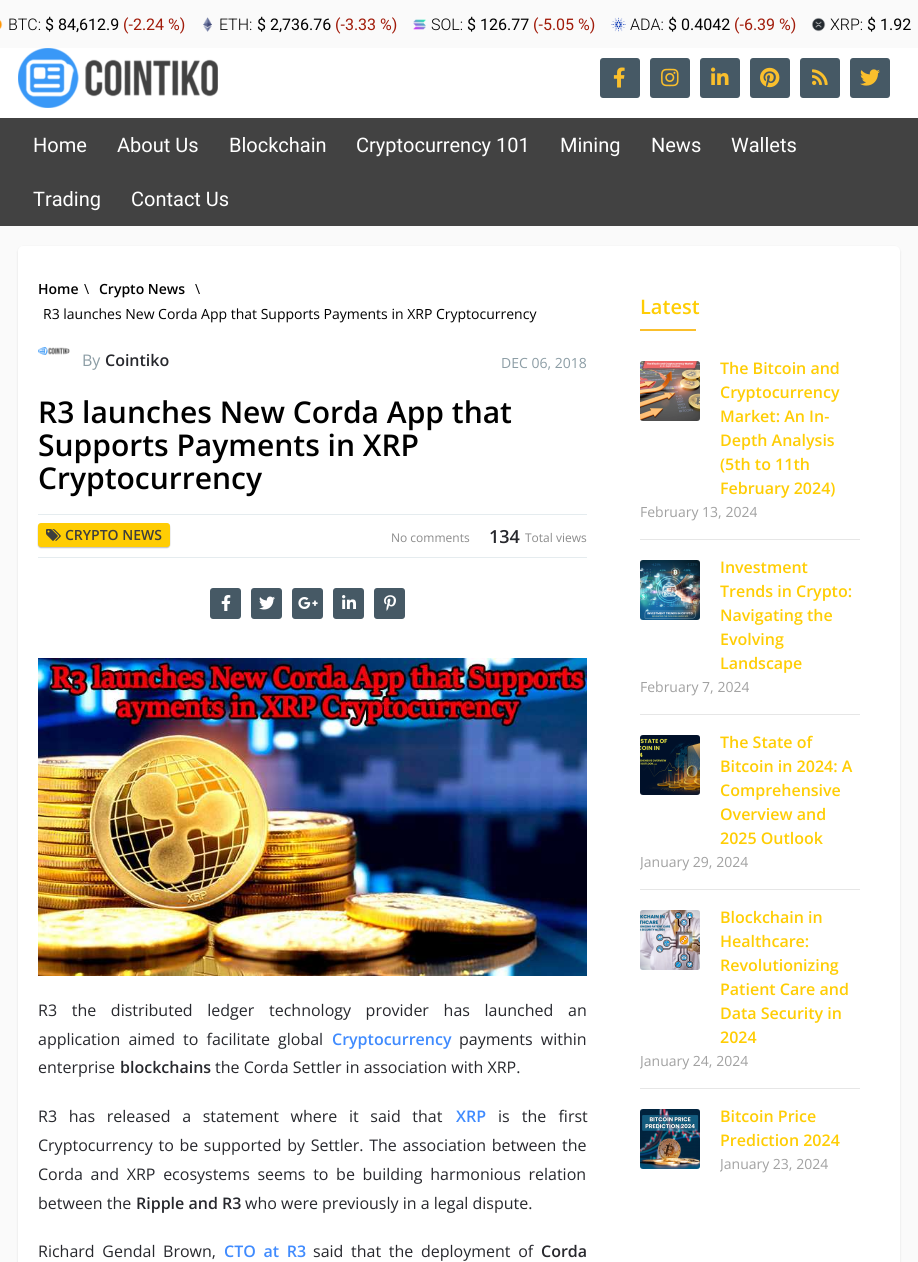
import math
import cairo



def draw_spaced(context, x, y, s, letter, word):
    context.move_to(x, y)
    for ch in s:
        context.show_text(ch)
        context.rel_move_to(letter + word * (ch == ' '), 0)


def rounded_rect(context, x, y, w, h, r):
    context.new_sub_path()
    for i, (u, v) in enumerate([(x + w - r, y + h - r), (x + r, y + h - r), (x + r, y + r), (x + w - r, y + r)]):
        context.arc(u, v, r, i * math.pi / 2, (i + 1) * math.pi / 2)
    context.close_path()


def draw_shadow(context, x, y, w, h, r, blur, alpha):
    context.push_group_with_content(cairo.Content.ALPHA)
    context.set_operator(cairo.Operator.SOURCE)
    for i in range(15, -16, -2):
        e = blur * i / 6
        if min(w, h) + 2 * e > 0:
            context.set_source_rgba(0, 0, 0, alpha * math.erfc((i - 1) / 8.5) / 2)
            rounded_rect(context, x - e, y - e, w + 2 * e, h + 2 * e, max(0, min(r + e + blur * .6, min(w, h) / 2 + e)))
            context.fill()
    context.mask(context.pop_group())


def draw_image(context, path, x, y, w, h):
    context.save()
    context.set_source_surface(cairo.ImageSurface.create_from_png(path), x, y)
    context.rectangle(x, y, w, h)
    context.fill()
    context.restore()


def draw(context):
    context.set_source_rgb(250 / 255, 250 / 255, 250 / 255)
    context.paint()
    draw_image(context, "images/1.png", 0, 20, 3, 9)
    draw_image(context, "images/2.png", 203, 17, 9, 15)
    draw_image(context, "images/3.png", 413, 19, 13, 11)
    draw_image(context, "images/4.png", 611, 17, 15, 15)
    draw_image(context, "images/5.png", 811, 17, 15, 15)
    context.set_source_rgb(1, 1, 1)
    context.rectangle(0, 48, 918, 70)
    context.fill()
    draw_image(context, "images/6.png", 18, 48, 200, 60)
    context.set_source_rgb(70 / 255, 89 / 255, 101 / 255)
    rounded_rect(context, 600, 58, 40, 40, 3)
    context.fill()
    draw_image(context, "images/7.png", 613, 67, 12, 21)
    rounded_rect(context, 650, 58, 40, 40, 3)
    context.fill()
    draw_image(context, "images/8.png", 661, 68, 18, 19)
    rounded_rect(context, 700, 58, 40, 40, 3)
    context.fill()
    draw_image(context, "images/9.png", 711, 67, 18, 18)
    rounded_rect(context, 750, 58, 40, 40, 3)
    context.fill()
    draw_image(context, "images/10.png", 760, 67, 20, 21)
    rounded_rect(context, 800, 58, 40, 40, 3)
    context.fill()
    draw_image(context, "images/11.png", 812, 69, 16, 16)
    rounded_rect(context, 850, 58, 40, 40, 3)
    context.fill()
    draw_image(context, "images/12.png", 860, 69, 20, 17)
    context.set_source_rgb(66 / 255, 66 / 255, 66 / 255)
    context.rectangle(0, 118, 918, 108)
    context.fill()
    context.set_source_rgb(0, 0, 0)
    draw_shadow(context, 18, 247, 882, 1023, 5, 1, 0.1)
    context.set_source_rgb(1, 1, 1)
    rounded_rect(context, 18, 246, 882, 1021, 5)
    context.fill()
    draw_image(context, "images/13.png", 38, 347, 32, 8)
    context.set_source_rgb(229 / 255, 236 / 255, 239 / 255)
    context.rectangle(38, 514, 549, 1)
    context.fill()
    context.rectangle(38, 557, 549, 1)
    context.fill()
    context.set_source_rgb(0, 0, 0)
    draw_shadow(context, 38, 524, 132, 24, 3, 0.5, 0.25)
    context.set_source_rgb(1, 205 / 255, 4 / 255)
    rounded_rect(context, 38, 523, 132, 24, 3)
    context.fill()
    draw_image(context, "images/14.png", 46, 529, 15, 12)
    context.set_source_rgb(70 / 255, 89 / 255, 101 / 255)
    rounded_rect(context, 211, 589, 29, 29, 2)
    context.fill_preserve()
    context.stroke()
    draw_image(context, "images/15.png", 221, 595, 10, 16)
    rounded_rect(context, 252, 589, 29, 29, 2)
    context.fill_preserve()
    context.stroke()
    draw_image(context, "images/16.png", 259, 596, 16, 14)
    rounded_rect(context, 293, 589, 29, 29, 2)
    context.fill_preserve()
    context.stroke()
    draw_image(context, "images/17.png", 298, 597, 20, 12)
    rounded_rect(context, 334, 589, 29, 29, 2)
    context.fill_preserve()
    context.stroke()
    draw_image(context, "images/18.png", 342, 595, 14, 14)
    rounded_rect(context, 375, 589, 29, 29, 2)
    context.fill_preserve()
    context.stroke()
    draw_image(context, "images/19.png", 384, 595, 12, 16)
    draw_image(context, "images/20.png", 38, 658, 549, 318)
    context.set_source_rgb(250 / 255, 191 / 255, 44 / 255)
    context.rectangle(640, 329, 56, 2)
    context.fill()
    context.set_source_rgb(230 / 255, 230 / 255, 230 / 255)
    context.rectangle(640, 539, 220, 1)
    context.fill()
    draw_image(context, "images/21.png", 640, 361, 60, 60)
    context.rectangle(640, 714, 220, 1)
    context.fill()
    draw_image(context, "images/22.png", 640, 560, 60, 60)
    context.rectangle(640, 889, 220, 1)
    context.fill()
    draw_image(context, "images/23.png", 640, 735, 60, 60)
    context.rectangle(640, 1088, 220, 1)
    context.fill()
    draw_image(context, "images/24.png", 640, 910, 60, 60)
    draw_image(context, "images/25.png", 640, 1109, 60, 60)
    context.select_font_face("Roboto Light")
    context.set_font_size(16)
    context.set_source_rgb(0, 0, 0)
    context.move_to(8, 30)
    context.show_text("BTC:")
    context.select_font_face("Roboto")
    context.move_to(45, 30)
    context.show_text("$ 84,612.9")
    context.set_source_rgb(161 / 255, 27 / 255, 10 / 255)
    context.move_to(123, 30)
    context.show_text("(-2.24 %)")
    context.select_font_face("Roboto Light")
    context.set_source_rgb(0, 0, 0)
    context.move_to(219, 30)
    context.show_text("ETH:")
    context.select_font_face("Roboto")
    context.move_to(257, 30)
    context.show_text("$ 2,736.76")
    context.set_source_rgb(161 / 255, 27 / 255, 10 / 255)
    context.move_to(335, 30)
    context.show_text("(-3.33 %)")
    context.select_font_face("Roboto Light")
    context.set_source_rgb(0, 0, 0)
    context.move_to(431, 30)
    context.show_text("SOL:")
    context.select_font_face("Roboto")
    context.move_to(467, 30)
    context.show_text("$ 126.77")
    context.set_source_rgb(161 / 255, 27 / 255, 10 / 255)
    context.move_to(533, 30)
    context.show_text("(-5.05 %)")
    context.select_font_face("Roboto Light")
    context.set_source_rgb(0, 0, 0)
    context.move_to(630, 30)
    context.show_text("ADA:")
    context.select_font_face("Roboto")
    context.move_to(668, 30)
    context.show_text("$ 0.4042")
    context.set_source_rgb(161 / 255, 27 / 255, 10 / 255)
    context.move_to(734, 30)
    context.show_text("(-6.39 %)")
    context.select_font_face("Roboto Light")
    context.set_source_rgb(0, 0, 0)
    context.move_to(830, 30)
    context.show_text("XRP:")
    context.select_font_face("Roboto")
    context.move_to(867, 30)
    context.show_text("$ 1.92")
    context.set_font_size(20)
    context.set_source_rgb(1, 1, 1)
    context.move_to(33, 152)
    context.show_text("Home")
    context.move_to(117, 152)
    context.show_text("About Us")
    context.move_to(229, 152)
    context.show_text("Blockchain")
    context.move_to(356, 152)
    context.show_text("Cryptocurrency 101")
    context.move_to(560, 152)
    context.show_text("Mining")
    context.move_to(651, 152)
    context.show_text("News")
    context.move_to(731, 152)
    context.show_text("Wallets")
    context.move_to(33, 206)
    context.show_text("Trading")
    context.move_to(131, 206)
    context.show_text("Contact Us")
    context.select_font_face("Open Sans SemiBold")
    context.set_font_size(14)
    context.set_source_rgb(0, 0, 0)
    context.move_to(38, 294)
    context.show_text("Home")
    context.select_font_face("Open Sans")
    context.move_to(84, 294)
    context.show_text("\\")
    context.select_font_face("Open Sans SemiBold")
    context.move_to(99, 294)
    context.show_text("Crypto News")
    context.select_font_face("Open Sans")
    context.move_to(195, 294)
    context.show_text("\\")
    context.move_to(43, 319)
    context.show_text("R3 launches New Corda App that Supports Payments in XRP Cryptocurrency")
    context.set_font_size(16)
    context.set_source_rgb(140 / 255, 157 / 255, 165 / 255)
    context.move_to(82, 366)
    context.show_text("By")
    context.select_font_face("Open Sans SemiBold")
    context.set_source_rgb(39 / 255, 40 / 255, 45 / 255)
    context.move_to(105, 366)
    context.show_text("Cointiko")
    context.select_font_face("Open Sans")
    context.set_font_size(14)
    context.set_source_rgb(140 / 255, 157 / 255, 165 / 255)
    context.move_to(501, 368)
    context.show_text("DEC 06, 2018")
    context.select_font_face("Open Sans SemiBold")
    context.set_font_size(30)
    context.set_source_rgb(0, 0, 0)
    context.move_to(38, 423)
    context.show_text("R3 launches New Corda App that")
    context.move_to(38, 456)
    context.show_text("Supports Payments in XRP")
    context.move_to(38, 489)
    context.show_text("Cryptocurrency")
    context.set_font_size(14)
    context.set_source_rgb(61 / 255, 61 / 255, 61 / 255)
    context.move_to(65, 540)
    context.show_text("CRYPTO NEWS")
    context.select_font_face("Open Sans")
    context.set_font_size(12)
    context.set_source_rgb(139 / 255, 139 / 255, 139 / 255)
    context.move_to(391, 542)
    context.show_text("No comments")
    context.select_font_face("Open Sans SemiBold")
    context.set_font_size(18)
    context.set_source_rgb(39 / 255, 40 / 255, 45 / 255)
    context.move_to(489, 543)
    context.show_text("134")
    context.select_font_face("Open Sans")
    context.set_font_size(12)
    context.set_source_rgb(139 / 255, 139 / 255, 139 / 255)
    context.move_to(525, 542)
    context.show_text("Total views")
    context.set_font_size(16)
    context.set_source_rgb(39 / 255, 40 / 255, 45 / 255)
    draw_spaced(context, 38, 1016, "R3 the distributed ledger technology provider has launched an", 0, 10.5)
    draw_spaced(context, 38, 1045, "application aimed to facilitate global", 0, 4)
    context.select_font_face("Open Sans SemiBold")
    context.set_source_rgb(64 / 255, 139 / 255, 254 / 255)
    context.move_to(332, 1045)
    context.show_text("Cryptocurrency")
    context.select_font_face("Open Sans")
    context.set_source_rgb(39 / 255, 40 / 255, 45 / 255)
    draw_spaced(context, 459, 1045, "payments within", 0, 4)
    context.move_to(38, 1073)
    context.show_text("enterprise")
    context.select_font_face("Open Sans SemiBold")
    context.move_to(120, 1073)
    context.show_text("blockchains")
    context.select_font_face("Open Sans")
    context.move_to(215, 1073)
    context.show_text("the Corda Settler in association with XRP.")
    draw_spaced(context, 38, 1122, "R3 has released a statement where it said that", 0, 7.5)
    context.select_font_face("Open Sans SemiBold")
    context.set_source_rgb(64 / 255, 139 / 255, 254 / 255)
    context.move_to(456, 1122)
    context.show_text("XRP")
    context.select_font_face("Open Sans")
    context.set_source_rgb(39 / 255, 40 / 255, 45 / 255)
    draw_spaced(context, 498, 1122, "is the first", 0, 8)
    draw_spaced(context, 38, 1151, "Cryptocurrency to be supported by Settler. The association between the", 0, 1.5)
    draw_spaced(context, 38, 1180, "Corda and XRP ecosystems seems to be building harmonious relation", 0, 3.5)
    context.move_to(38, 1209)
    context.show_text("between the")
    context.select_font_face("Open Sans SemiBold")
    context.move_to(136, 1209)
    context.show_text("Ripple and R3")
    context.select_font_face("Open Sans")
    context.move_to(245, 1209)
    context.show_text("who were previously in a legal dispute.")
    draw_spaced(context, 38, 1257, "Richard Gendal Brown,", 0, 3.5)
    context.select_font_face("Open Sans SemiBold")
    context.set_source_rgb(64 / 255, 139 / 255, 254 / 255)
    draw_spaced(context, 224, 1257, "CTO at R3", 0, 3.5)
    context.select_font_face("Open Sans")
    context.set_source_rgb(39 / 255, 40 / 255, 45 / 255)
    draw_spaced(context, 313, 1257, "said that the deployment of", 0, 3.5)
    context.select_font_face("Open Sans SemiBold")
    context.move_to(541, 1257)
    context.show_text("Corda")
    context.set_font_size(20)
    context.set_source_rgb(1, 205 / 255, 4 / 255)
    context.move_to(640, 314)
    context.show_text("Latest")
    context.set_font_size(16)
    context.move_to(720, 374)
    context.show_text("The Bitcoin and")
    context.move_to(720, 398)
    context.show_text("Cryptocurrency")
    context.move_to(720, 422)
    context.show_text("Market: An In-")
    context.move_to(720, 446)
    context.show_text("Depth Analysis")
    context.move_to(720, 470)
    context.show_text("(5th to 11th")
    context.move_to(720, 494)
    context.show_text("February 2024)")
    context.select_font_face("Open Sans")
    context.set_font_size(14)
    context.set_source_rgb(161 / 255, 161 / 255, 161 / 255)
    context.move_to(640, 517)
    context.show_text("February 13, 2024")
    context.select_font_face("Open Sans SemiBold")
    context.set_font_size(16)
    context.set_source_rgb(1, 205 / 255, 4 / 255)
    context.move_to(720, 573)
    context.show_text("Investment")
    context.move_to(720, 597)
    context.show_text("Trends in Crypto:")
    context.move_to(720, 621)
    context.show_text("Navigating the")
    context.move_to(720, 645)
    context.show_text("Evolving")
    context.move_to(720, 669)
    context.show_text("Landscape")
    context.select_font_face("Open Sans")
    context.set_font_size(14)
    context.set_source_rgb(161 / 255, 161 / 255, 161 / 255)
    context.move_to(640, 692)
    context.show_text("February 7, 2024")
    context.select_font_face("Open Sans SemiBold")
    context.set_font_size(16)
    context.set_source_rgb(1, 205 / 255, 4 / 255)
    context.move_to(720, 748)
    context.show_text("The State of")
    context.move_to(720, 772)
    context.show_text("Bitcoin in 2024: A")
    context.move_to(720, 796)
    context.show_text("Comprehensive")
    context.move_to(720, 820)
    context.show_text("Overview and")
    context.move_to(720, 844)
    context.show_text("2025 Outlook")
    context.save()
    context.rectangle(640, 850, 220, 24)
    context.clip()
    context.select_font_face("Open Sans")
    context.set_font_size(14)
    context.set_source_rgb(161 / 255, 161 / 255, 161 / 255)
    context.move_to(640, 867)
    context.show_text("January 29, 2024")
    context.restore()
    context.move_to(720, 923)
    context.show_text("Blockchain in")
    context.move_to(720, 947)
    context.show_text("Healthcare:")
    context.move_to(720, 971)
    context.show_text("Revolutionizing")
    context.move_to(720, 995)
    context.show_text("Patient Care and")
    context.move_to(720, 1019)
    context.show_text("Data Security in")
    context.move_to(720, 1043)
    context.show_text("2024")
    context.save()
    context.rectangle(640, 1049, 220, 24)
    context.clip()
    context.select_font_face("Open Sans")
    context.set_font_size(14)
    context.set_source_rgb(161 / 255, 161 / 255, 161 / 255)
    context.move_to(640, 1066)
    context.show_text("January 24, 2024")
    context.restore()
    context.move_to(720, 1122)
    context.show_text("Bitcoin Price")
    context.move_to(720, 1146)
    context.show_text("Prediction 2024")
    context.save()
    context.rectangle(720, 1152, 140, 24)
    context.clip()
    context.select_font_face("Open Sans")
    context.set_font_size(14)
    context.set_source_rgb(161 / 255, 161 / 255, 161 / 255)
    context.move_to(720, 1169)
    context.show_text("January 23, 2024")
    context.restore()


surface = cairo.ImageSurface(cairo.Format.RGB24, 918, 1262)
context = cairo.Context(surface)
options = cairo.FontOptions()
options.set_hint_metrics(cairo.HintMetrics.OFF)
options.set_hint_style(cairo.HintStyle.NONE)
context.set_font_options(options)
context.set_miter_limit(4)
draw(context)
surface.write_to_png("out.png")
